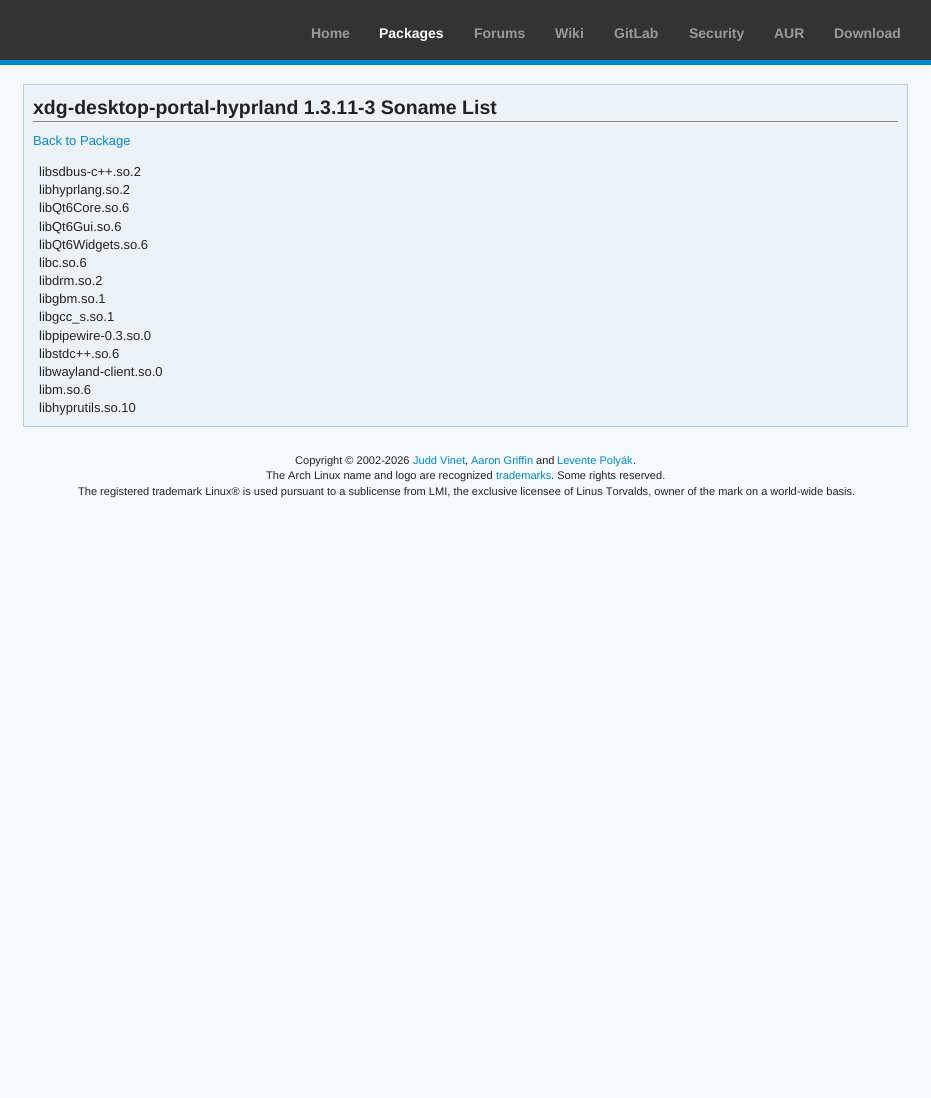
import math
import cairo



def draw(context):
    context.set_source_rgb(246 / 255, 249 / 255, 252 / 255)
    context.paint()
    context.set_source_rgb(51 / 255, 51 / 255, 51 / 255)
    context.rectangle(0, 0, 931, 60)
    context.fill()
    context.set_source_rgb(0, 136 / 255, 204 / 255)
    context.rectangle(0, 60, 931, 5)
    context.fill()
    context.set_source_rgb(236 / 255, 242 / 255, 245 / 255)
    context.rectangle(23.5, 84.5, 884, 342)
    context.fill_preserve()
    context.set_source_rgb(187 / 255, 204 / 255, 221 / 255)
    context.set_line_width(1)
    context.stroke()
    context.set_source_rgb(136 / 255, 136 / 255, 136 / 255)
    context.rectangle(33, 121, 865, 1)
    context.fill()
    context.select_font_face("Liberation Sans", cairo.FontSlant.NORMAL, cairo.FontWeight.BOLD)
    context.set_font_size(14)
    context.set_source_rgb(153 / 255, 153 / 255, 153 / 255)
    context.move_to(311, 38)
    context.show_text("Home")
    context.set_source_rgb(1, 1, 1)
    context.move_to(379, 38)
    context.show_text("Packages")
    context.set_source_rgb(153 / 255, 153 / 255, 153 / 255)
    context.move_to(474, 38)
    context.show_text("Forums")
    context.move_to(555, 38)
    context.show_text("Wiki")
    context.move_to(614, 38)
    context.show_text("GitLab")
    context.move_to(689, 38)
    context.show_text("Security")
    context.move_to(774, 38)
    context.show_text("AUR")
    context.move_to(834, 38)
    context.show_text("Download")
    context.set_font_size(19.5)
    context.set_source_rgb(34 / 255, 34 / 255, 34 / 255)
    context.move_to(33, 114)
    context.show_text("xdg-desktop-portal-hyprland 1.3.11-3 Soname List")
    context.select_font_face("Liberation Sans")
    context.set_font_size(13)
    context.set_source_rgb(0, 136 / 255, 204 / 255)
    context.move_to(33, 145)
    context.show_text("Back to Package")
    context.set_source_rgb(34 / 255, 34 / 255, 34 / 255)
    context.move_to(39, 176)
    context.show_text("libsdbus-c++.so.2")
    context.move_to(39, 194)
    context.show_text("libhyprlang.so.2")
    context.move_to(39, 212)
    context.show_text("libQt6Core.so.6")
    context.move_to(39, 231)
    context.show_text("libQt6Gui.so.6")
    context.move_to(39, 249)
    context.show_text("libQt6Widgets.so.6")
    context.move_to(39, 267)
    context.show_text("libc.so.6")
    context.move_to(39, 285)
    context.show_text("libdrm.so.2")
    context.move_to(39, 303)
    context.show_text("libgbm.so.1")
    context.move_to(39, 321)
    context.show_text("libgcc_s.so.1")
    context.move_to(39, 340)
    context.show_text("libpipewire-0.3.so.0")
    context.move_to(39, 358)
    context.show_text("libstdc++.so.6")
    context.move_to(39, 376)
    context.show_text("libwayland-client.so.0")
    context.move_to(39, 394)
    context.show_text("libm.so.6")
    context.move_to(39, 412)
    context.show_text("libhyprutils.so.10")
    context.set_font_size(11.05)
    context.move_to(295, 464)
    context.show_text("Copyright © 2002-2026")
    context.set_source_rgb(0, 136 / 255, 204 / 255)
    context.move_to(413, 464)
    context.show_text("Judd Vinet")
    context.set_source_rgb(34 / 255, 34 / 255, 34 / 255)
    context.move_to(465, 464)
    context.show_text(",")
    context.set_source_rgb(0, 136 / 255, 204 / 255)
    context.move_to(471, 464)
    context.show_text("Aaron Griffin")
    context.set_source_rgb(34 / 255, 34 / 255, 34 / 255)
    context.move_to(536, 464)
    context.show_text("and")
    context.set_source_rgb(0, 136 / 255, 204 / 255)
    context.move_to(557, 464)
    context.show_text("Levente Polyák")
    context.set_source_rgb(34 / 255, 34 / 255, 34 / 255)
    context.move_to(633, 464)
    context.show_text(".")
    context.move_to(266, 479)
    context.show_text("The Arch Linux name and logo are recognized")
    context.set_source_rgb(0, 136 / 255, 204 / 255)
    context.move_to(496, 479)
    context.show_text("trademarks")
    context.set_source_rgb(34 / 255, 34 / 255, 34 / 255)
    context.move_to(551, 479)
    context.show_text(". Some rights reserved.")
    context.move_to(78, 495)
    context.show_text("The registered trademark Linux® is used pursuant to a sublicense from LMI, the exclusive licensee of Linus Torvalds, owner of the mark on a world-wide basis.")


surface = cairo.ImageSurface(cairo.Format.RGB24, 931, 1098)
context = cairo.Context(surface)
options = cairo.FontOptions()
options.set_hint_metrics(cairo.HintMetrics.OFF)
options.set_hint_style(cairo.HintStyle.NONE)
context.set_font_options(options)
context.set_miter_limit(4)
draw(context)
surface.write_to_png("out.png")
